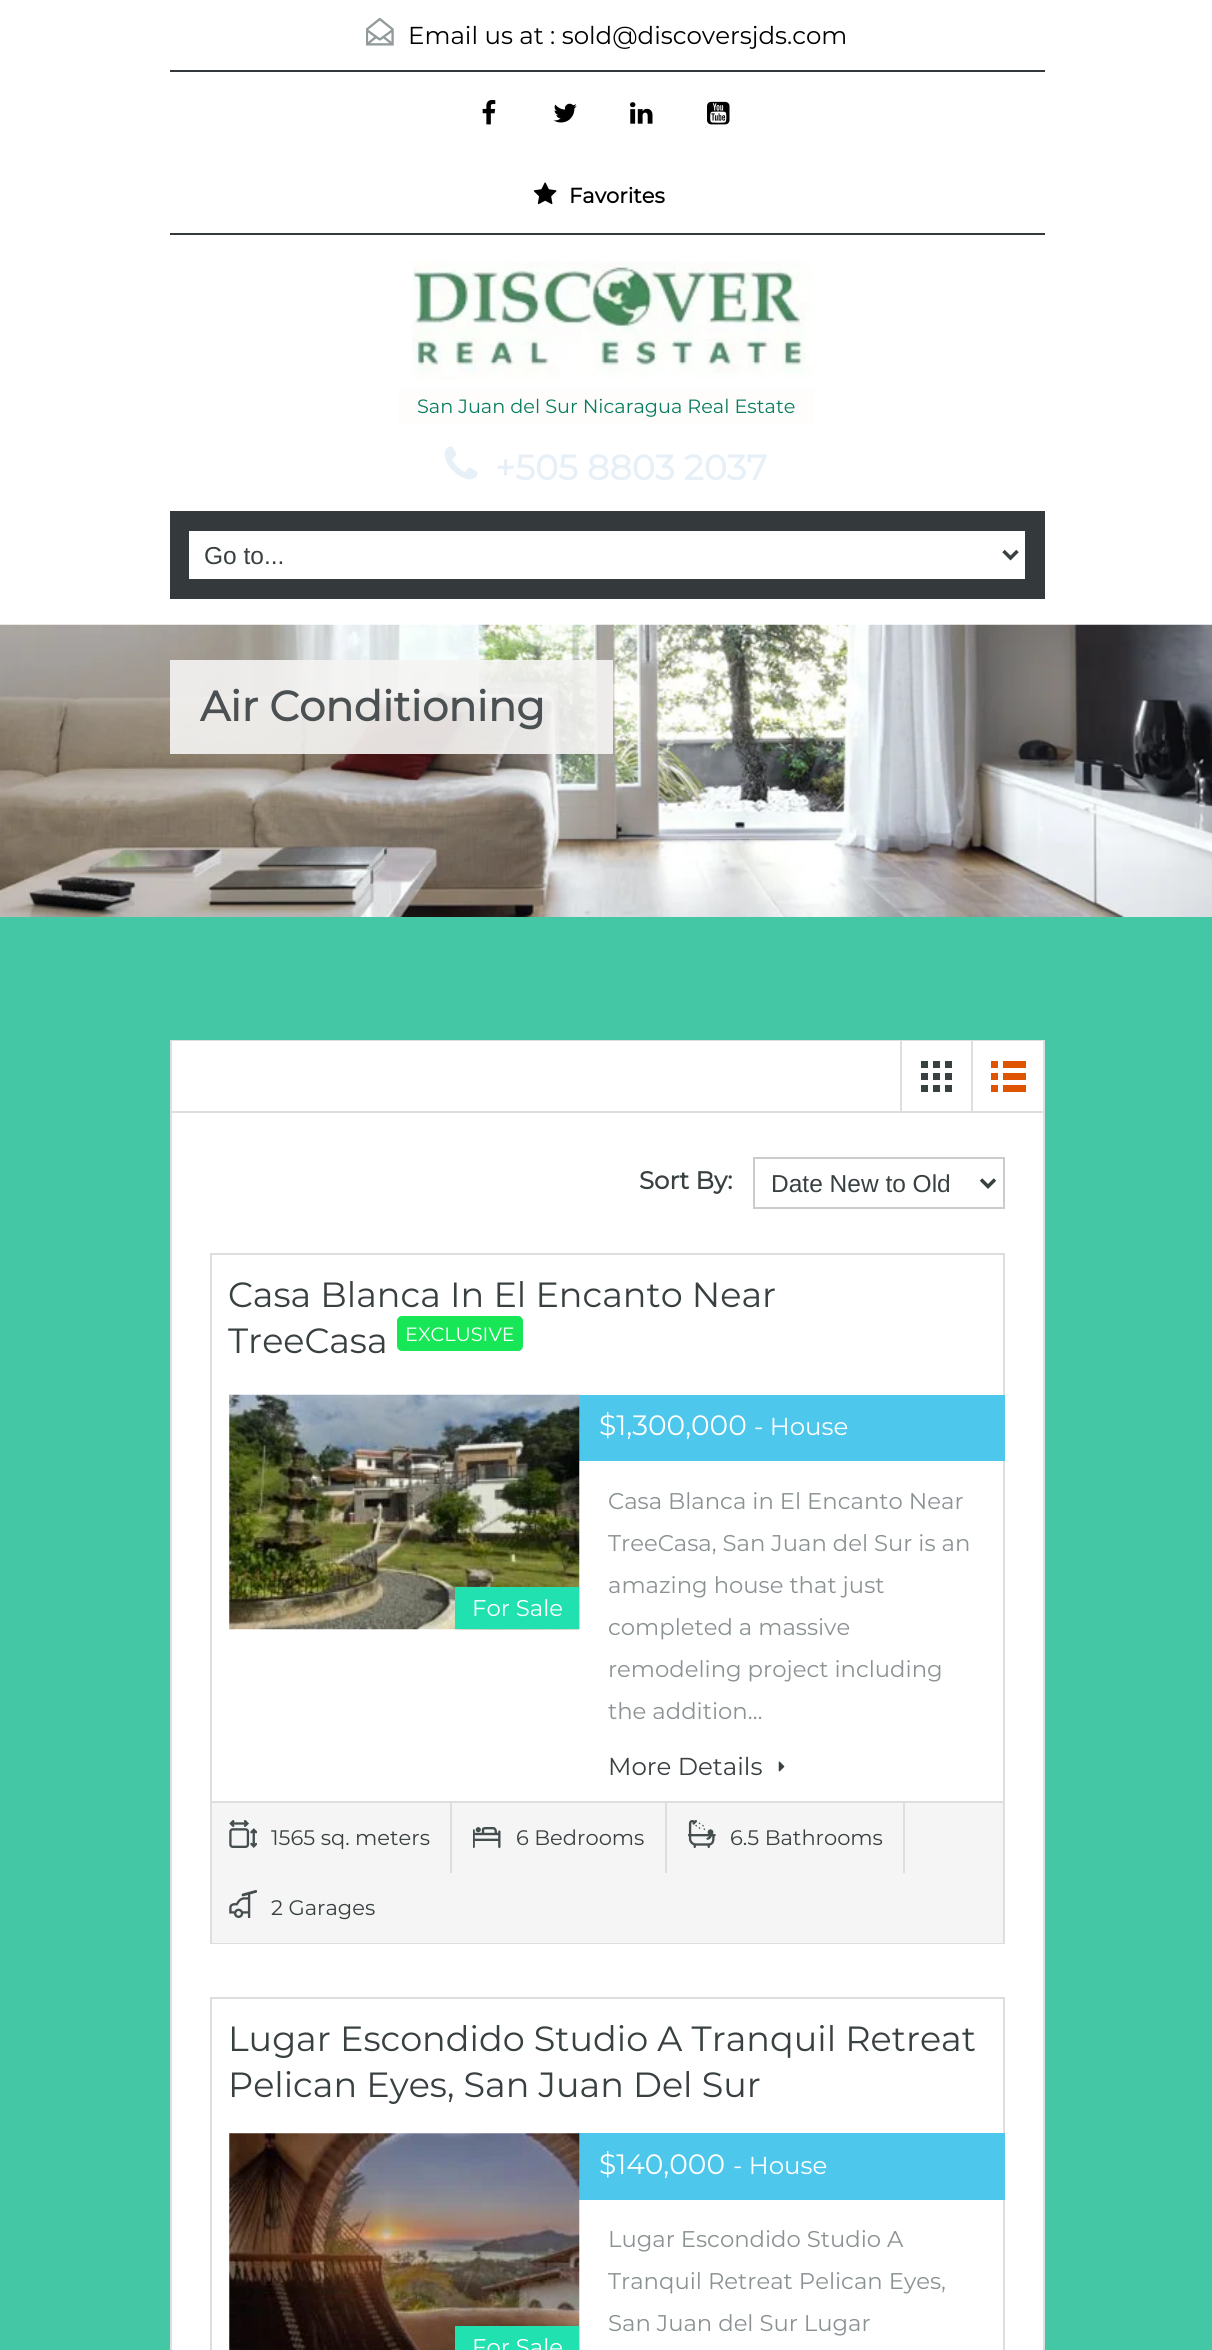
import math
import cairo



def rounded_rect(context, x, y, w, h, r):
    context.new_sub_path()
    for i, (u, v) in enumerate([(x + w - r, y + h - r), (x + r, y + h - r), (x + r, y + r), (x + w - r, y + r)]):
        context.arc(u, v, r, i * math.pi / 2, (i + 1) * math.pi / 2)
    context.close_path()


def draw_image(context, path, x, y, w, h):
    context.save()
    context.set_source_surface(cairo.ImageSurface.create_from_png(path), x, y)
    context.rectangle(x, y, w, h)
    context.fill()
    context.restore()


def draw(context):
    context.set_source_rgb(68 / 255, 199 / 255, 164 / 255)
    context.paint()
    context.set_source_rgb(1, 1, 1)
    context.rectangle(0, 0, 1212, 625)
    context.fill()
    context.set_source_rgb(52 / 255, 58 / 255, 59 / 255)
    context.rectangle(170, 233, 875, 2)
    context.fill()
    draw_image(context, "images/1.png", 366, 18, 28, 28)
    context.rectangle(170, 70, 875, 2)
    context.fill()
    draw_image(context, "images/2.png", 482, 100, 14, 25)
    draw_image(context, "images/3.png", 553, 103, 24, 20)
    draw_image(context, "images/4.png", 630, 102, 23, 22)
    draw_image(context, "images/5.png", 707, 101, 23, 24)
    draw_image(context, "images/6.png", 533, 182, 24, 23)
    draw_image(context, "images/7.png", 412, 261, 400, 119)
    context.set_source_rgb(1, 252 / 255, 252 / 255)
    context.rectangle(399, 389, 415, 36)
    context.fill()
    draw_image(context, "images/8.png", 444, 446, 34, 34)
    context.set_source_rgb(52 / 255, 58 / 255, 59 / 255)
    context.rectangle(170, 511, 875, 88)
    context.fill()
    context.set_source_rgb(1, 1, 1)
    context.rectangle(189, 531, 836, 48)
    context.fill()
    context.new_path()
    context.move_to(1003.5, 551)
    context.line_to(1010.5, 558)
    context.line_to(1017.5, 551)
    context.set_source_rgb(57 / 255, 64 / 255, 65 / 255)
    context.set_line_width(3.5)
    context.stroke()
    draw_image(context, "images/9.png", 0, 624, 1212, 293)
    context.set_source_rgba(245 / 255, 244 / 255, 243 / 255, 0.9)
    context.rectangle(170, 660, 443, 94)
    context.fill()
    context.set_source_rgb(222 / 255, 222 / 255, 222 / 255)
    context.rectangle(1043, 1040, 2, 1310)
    context.fill()
    context.rectangle(170, 1040, 2, 1310)
    context.fill()
    context.set_source_rgb(1, 1, 1)
    context.rectangle(172, 1113, 871, 1237)
    context.fill()
    context.set_source_rgb(222 / 255, 222 / 255, 222 / 255)
    context.rectangle(172, 1040, 871, 1)
    context.fill()
    context.set_source_rgb(1, 1, 1)
    context.rectangle(172, 1041, 871, 70)
    context.fill()
    context.set_source_rgb(222 / 255, 222 / 255, 222 / 255)
    context.rectangle(172, 1111, 871, 2)
    context.fill()
    context.rectangle(900, 1041, 2, 70)
    context.fill()
    draw_image(context, "images/10.png", 921, 1061, 31, 31)
    context.rectangle(971, 1041, 2, 70)
    context.fill()
    context.set_source_rgb(223 / 255, 84 / 255, 0)
    context.rectangle(991, 1061, 7, 7)
    context.fill()
    context.rectangle(1003, 1061, 23, 7)
    context.fill()
    context.rectangle(991, 1073, 7, 7)
    context.fill()
    context.rectangle(1003, 1073, 23, 7)
    context.fill()
    context.rectangle(991, 1085, 7, 7)
    context.fill()
    context.rectangle(1003, 1085, 23, 7)
    context.fill()
    context.rectangle(754, 1158, 250, 50)
    context.set_source_rgb(204 / 255, 204 / 255, 204 / 255)
    context.set_line_width(2)
    context.stroke()
    context.new_path()
    context.move_to(981, 1179.5)
    context.line_to(988, 1186.5)
    context.line_to(995, 1179.5)
    context.set_source_rgb(57 / 255, 64 / 255, 65 / 255)
    context.set_line_width(3.5)
    context.stroke()
    context.rectangle(211, 1254, 793, 689)
    context.set_source_rgb(222 / 255, 222 / 255, 222 / 255)
    context.set_line_width(2)
    context.stroke()
    context.set_source_rgb(23 / 255, 231 / 255, 87 / 255)
    rounded_rect(context, 397, 1316, 126, 35, 5)
    context.fill()
    context.set_source_rgb(77 / 255, 199 / 255, 236 / 255)
    context.rectangle(579, 1395, 426, 66)
    context.fill()
    draw_image(context, "images/11.png", 229, 1394, 351, 236)
    context.set_source_rgb(33 / 255, 225 / 255, 176 / 255)
    context.rectangle(455, 1587, 124, 42)
    context.fill()
    draw_image(context, "images/12.png", 778, 1761, 7, 11)
    context.set_source_rgb(245 / 255, 245 / 255, 245 / 255)
    context.rectangle(212, 1803, 791, 140)
    context.fill()
    context.set_source_rgb(222 / 255, 222 / 255, 222 / 255)
    context.rectangle(212, 1801, 791, 2)
    context.fill()
    context.rectangle(450, 1803, 2, 70)
    context.fill()
    draw_image(context, "images/13.png", 229, 1820, 28, 28)
    context.rectangle(665, 1803, 2, 70)
    context.fill()
    draw_image(context, "images/14.png", 473, 1827, 28, 21)
    context.rectangle(903, 1803, 2, 70)
    context.fill()
    draw_image(context, "images/15.png", 688, 1820, 28, 28)
    draw_image(context, "images/16.png", 229, 1890, 28, 28)
    context.rectangle(211, 1998, 793, 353)
    context.stroke()
    context.set_source_rgb(77 / 255, 199 / 255, 236 / 255)
    context.rectangle(578, 2133, 427, 67)
    context.fill()
    draw_image(context, "images/17.png", 229, 2133, 351, 217)
    context.set_source_rgb(33 / 255, 225 / 255, 176 / 255)
    context.rectangle(455, 2326, 124, 24)
    context.fill()
    context.select_font_face("Montserrat Thin")
    context.set_font_size(24.5)
    context.set_source_rgb(0, 0, 0)
    context.move_to(408, 44)
    context.show_text("Email us at : sold@discoversjds.com")
    context.select_font_face("Montserrat", cairo.FontSlant.NORMAL, cairo.FontWeight.BOLD)
    context.set_font_size(21)
    context.move_to(569, 203)
    context.show_text("Favorites")
    context.select_font_face("Montserrat Thin")
    context.set_font_size(19.25)
    context.set_source_rgb(8 / 255, 125 / 255, 95 / 255)
    context.move_to(417, 413)
    context.show_text("San Juan del Sur Nicaragua Real Estate")
    context.select_font_face("Montserrat", cairo.FontSlant.NORMAL, cairo.FontWeight.BOLD)
    context.set_font_size(35)
    context.set_source_rgb(231 / 255, 239 / 255, 247 / 255)
    context.move_to(495, 480)
    context.show_text("+505 8803 2037")
    context.select_font_face("Liberation Sans")
    context.set_font_size(24.5)
    context.set_source_rgb(57 / 255, 64 / 255, 65 / 255)
    context.move_to(204, 564)
    context.show_text("Go to...")
    context.select_font_face("Montserrat", cairo.FontSlant.NORMAL, cairo.FontWeight.BOLD)
    context.set_font_size(42)
    context.set_source_rgb(75 / 255, 81 / 255, 82 / 255)
    context.move_to(200, 721)
    context.show_text("Air Conditioning")
    context.set_font_size(24.5)
    context.set_source_rgb(57 / 255, 64 / 255, 65 / 255)
    context.move_to(639, 1189)
    context.show_text("Sort By:")
    context.select_font_face("Liberation Sans")
    context.move_to(771, 1192)
    context.show_text("Date New to Old")
    context.select_font_face("Montserrat Thin")
    context.set_font_size(35)
    context.move_to(228, 1307)
    context.show_text("Casa Blanca In El Encanto Near")
    context.move_to(228, 1353)
    context.show_text("TreeCasa")
    context.set_font_size(19.25)
    context.set_source_rgb(1, 1, 1)
    context.move_to(405, 1341)
    context.show_text("EXCLUSIVE")
    context.set_font_size(22.75)
    context.move_to(472, 1616)
    context.show_text("For Sale")
    context.set_font_size(28)
    context.move_to(599, 1435)
    context.show_text("$1,300,000")
    context.set_font_size(24.5)
    context.move_to(754, 1435)
    context.show_text("- House")
    context.set_font_size(22.75)
    context.set_source_rgb(139 / 255, 146 / 255, 147 / 255)
    context.move_to(608, 1509)
    context.show_text("Casa Blanca in El Encanto Near")
    context.move_to(608, 1551)
    context.show_text("TreeCasa, San Juan del Sur is an")
    context.move_to(608, 1593)
    context.show_text("amazing house that just")
    context.move_to(608, 1635)
    context.show_text("completed a massive")
    context.move_to(608, 1677)
    context.show_text("remodeling project including")
    context.move_to(608, 1719)
    context.show_text("the addition…")
    context.set_font_size(24.5)
    context.set_source_rgb(57 / 255, 64 / 255, 65 / 255)
    context.move_to(608, 1775)
    context.show_text("More Details")
    context.set_font_size(21)
    context.move_to(271, 1845)
    context.show_text("1565 sq. meters")
    context.move_to(516, 1845)
    context.show_text("6 Bedrooms")
    context.move_to(730, 1845)
    context.show_text("6.5 Bathrooms")
    context.move_to(271, 1915)
    context.show_text("2 Garages")
    context.set_font_size(35)
    context.move_to(228, 2051)
    context.show_text("Lugar Escondido Studio A Tranquil Retreat")
    context.move_to(228, 2097)
    context.show_text("Pelican Eyes, San Juan Del Sur")
    context.set_font_size(28)
    context.set_source_rgb(1, 1, 1)
    context.move_to(599, 2174)
    context.show_text("$140,000")
    context.set_font_size(24.5)
    context.move_to(733, 2174)
    context.show_text("- House")
    context.set_font_size(22.75)
    context.set_source_rgb(139 / 255, 146 / 255, 147 / 255)
    context.move_to(608, 2247)
    context.show_text("Lugar Escondido Studio A")
    context.move_to(608, 2289)
    context.show_text("Tranquil Retreat Pelican Eyes,")
    context.move_to(608, 2331)
    context.show_text("San Juan del Sur Lugar")
    context.set_source_rgb(1, 1, 1)
    context.move_to(472, 2355)
    context.show_text("For Sale")


surface = cairo.ImageSurface(cairo.Format.RGB24, 1212, 2350)
context = cairo.Context(surface)
options = cairo.FontOptions()
options.set_hint_metrics(cairo.HintMetrics.OFF)
options.set_hint_style(cairo.HintStyle.NONE)
context.set_font_options(options)
context.set_miter_limit(4)
draw(context)
surface.write_to_png("out.png")
